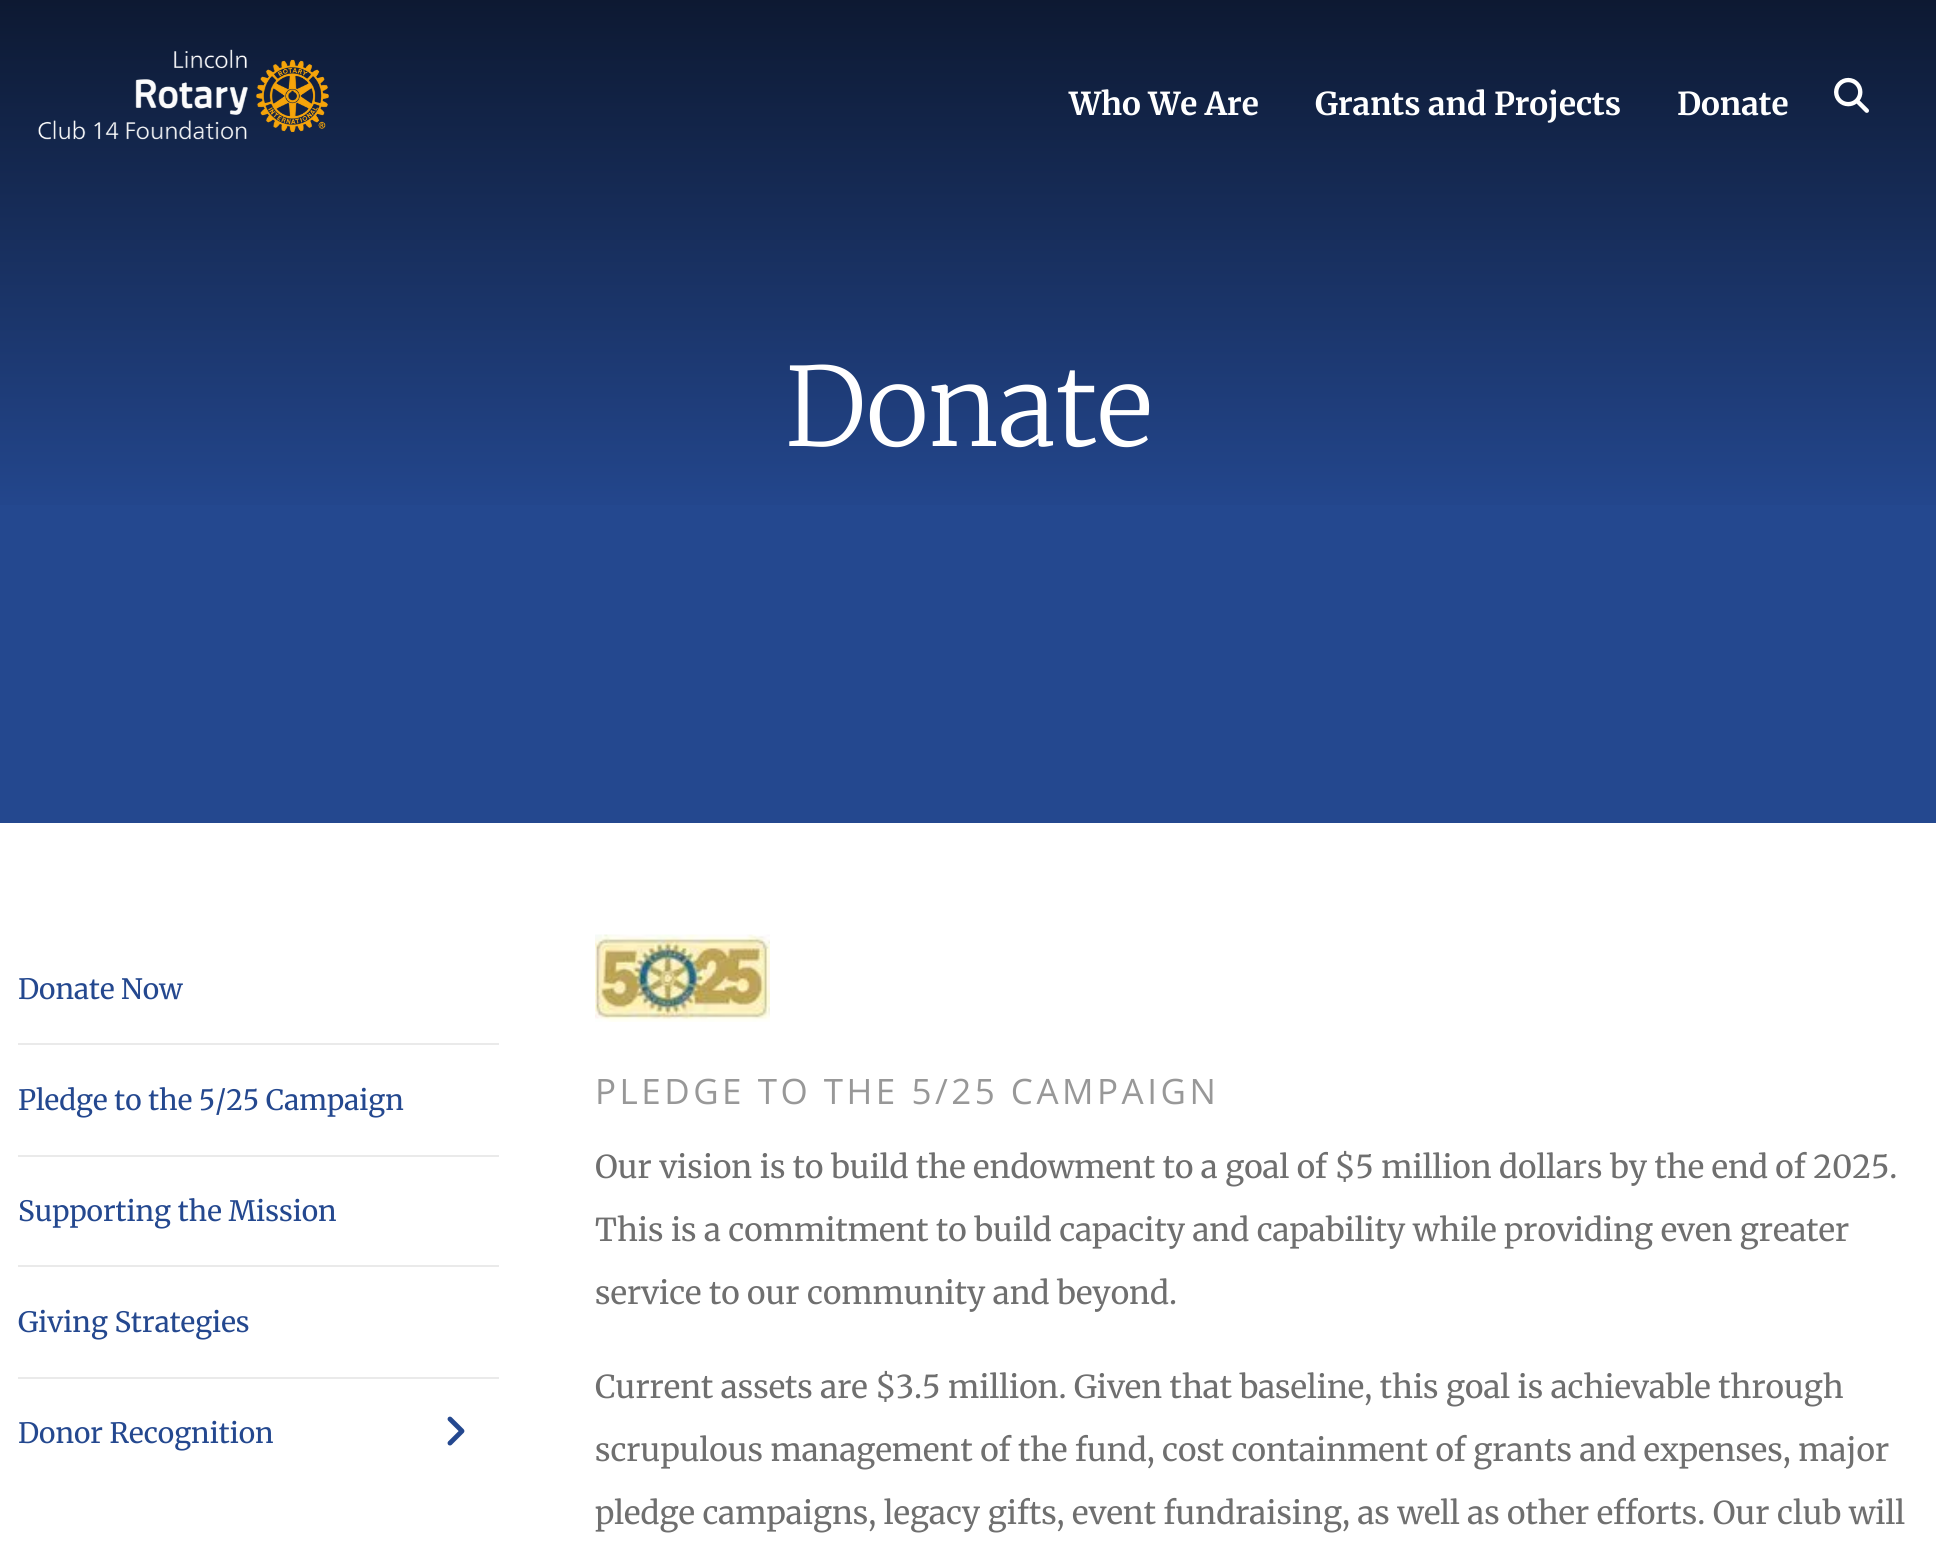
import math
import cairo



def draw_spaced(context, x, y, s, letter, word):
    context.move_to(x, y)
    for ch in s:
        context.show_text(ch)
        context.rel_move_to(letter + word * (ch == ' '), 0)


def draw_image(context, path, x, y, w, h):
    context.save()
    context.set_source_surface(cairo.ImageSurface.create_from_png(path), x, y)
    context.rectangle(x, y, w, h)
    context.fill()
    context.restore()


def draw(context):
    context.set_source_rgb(36 / 255, 72 / 255, 143 / 255)
    context.paint()
    gradient = cairo.LinearGradient(969, 0, 969, 525)
    gradient.add_color_stop_rgba(0, 13 / 255, 25 / 255, 50 / 255, 1)
    gradient.add_color_stop_rgba(1, 36 / 255, 72 / 255, 144 / 255, 1)
    context.set_source(gradient)
    context.rectangle(0, 0, 1936, 505)
    context.fill()
    draw_image(context, "images/1.png", 38, 49, 291, 91)
    draw_image(context, "images/2.png", 1834, 77, 35, 36)
    context.set_source_rgb(1, 1, 1)
    context.rectangle(0, 823, 1936, 743)
    context.fill()
    context.set_source_rgb(234 / 255, 234 / 255, 234 / 255)
    context.rectangle(18, 1043, 481, 2)
    context.fill()
    context.rectangle(18, 1155, 481, 2)
    context.fill()
    context.rectangle(18, 1265, 481, 2)
    context.fill()
    context.rectangle(18, 1377, 481, 2)
    context.fill()
    draw_image(context, "images/3.png", 447, 1416, 18, 30)
    draw_image(context, "images/4.png", 595, 934, 175, 88)
    context.select_font_face("Merriweather", cairo.FontSlant.NORMAL, cairo.FontWeight.BOLD)
    context.set_font_size(31.5)
    context.set_source_rgb(1, 1, 1)
    context.move_to(1069, 115)
    context.show_text("Who We Are")
    context.move_to(1315, 115)
    context.show_text("Grants and Projects")
    context.move_to(1677, 115)
    context.show_text("Donate")
    context.select_font_face("Merriweather Light")
    context.set_font_size(108.5)
    context.move_to(785, 446)
    context.show_text("Donate")
    context.select_font_face("Merriweather")
    context.set_font_size(28)
    context.set_source_rgb(36 / 255, 72 / 255, 143 / 255)
    context.move_to(18, 999)
    context.show_text("Donate Now")
    context.move_to(18, 1110)
    context.show_text("Pledge to the 5/25 Campaign")
    context.move_to(18, 1221)
    context.show_text("Supporting the Mission")
    context.move_to(18, 1332)
    context.show_text("Giving Strategies")
    context.move_to(18, 1443)
    context.show_text("Donor Recognition")
    context.select_font_face("Open Sans")
    context.set_font_size(35)
    context.set_source_rgb(152 / 255, 152 / 255, 152 / 255)
    draw_spaced(context, 595, 1104, "PLEDGE TO THE 5/25 CAMPAIGN", 3.5, 0)
    context.select_font_face("Merriweather")
    context.set_font_size(31.5)
    context.set_source_rgb(111 / 255, 111 / 255, 111 / 255)
    context.move_to(595, 1178)
    context.show_text("Our vision is to build the endowment to a goal of $5 million dollars by the end of 2025.")
    context.move_to(595, 1241)
    context.show_text("This is a commitment to build capacity and capability while providing even greater")
    context.move_to(595, 1304)
    context.show_text("service to our community and beyond.")
    context.move_to(595, 1398)
    context.show_text("Current assets are $3.5 million. Given that baseline, this goal is achievable through")
    context.move_to(595, 1461)
    context.show_text("scrupulous management of the fund, cost containment of grants and expenses, major")
    context.move_to(595, 1524)
    context.show_text("pledge campaigns, legacy gifts, event fundraising, as well as other efforts. Our club will")


surface = cairo.ImageSurface(cairo.Format.RGB24, 1936, 1566)
context = cairo.Context(surface)
options = cairo.FontOptions()
options.set_hint_metrics(cairo.HintMetrics.OFF)
options.set_hint_style(cairo.HintStyle.NONE)
context.set_font_options(options)
context.set_miter_limit(4)
draw(context)
surface.write_to_png("out.png")
